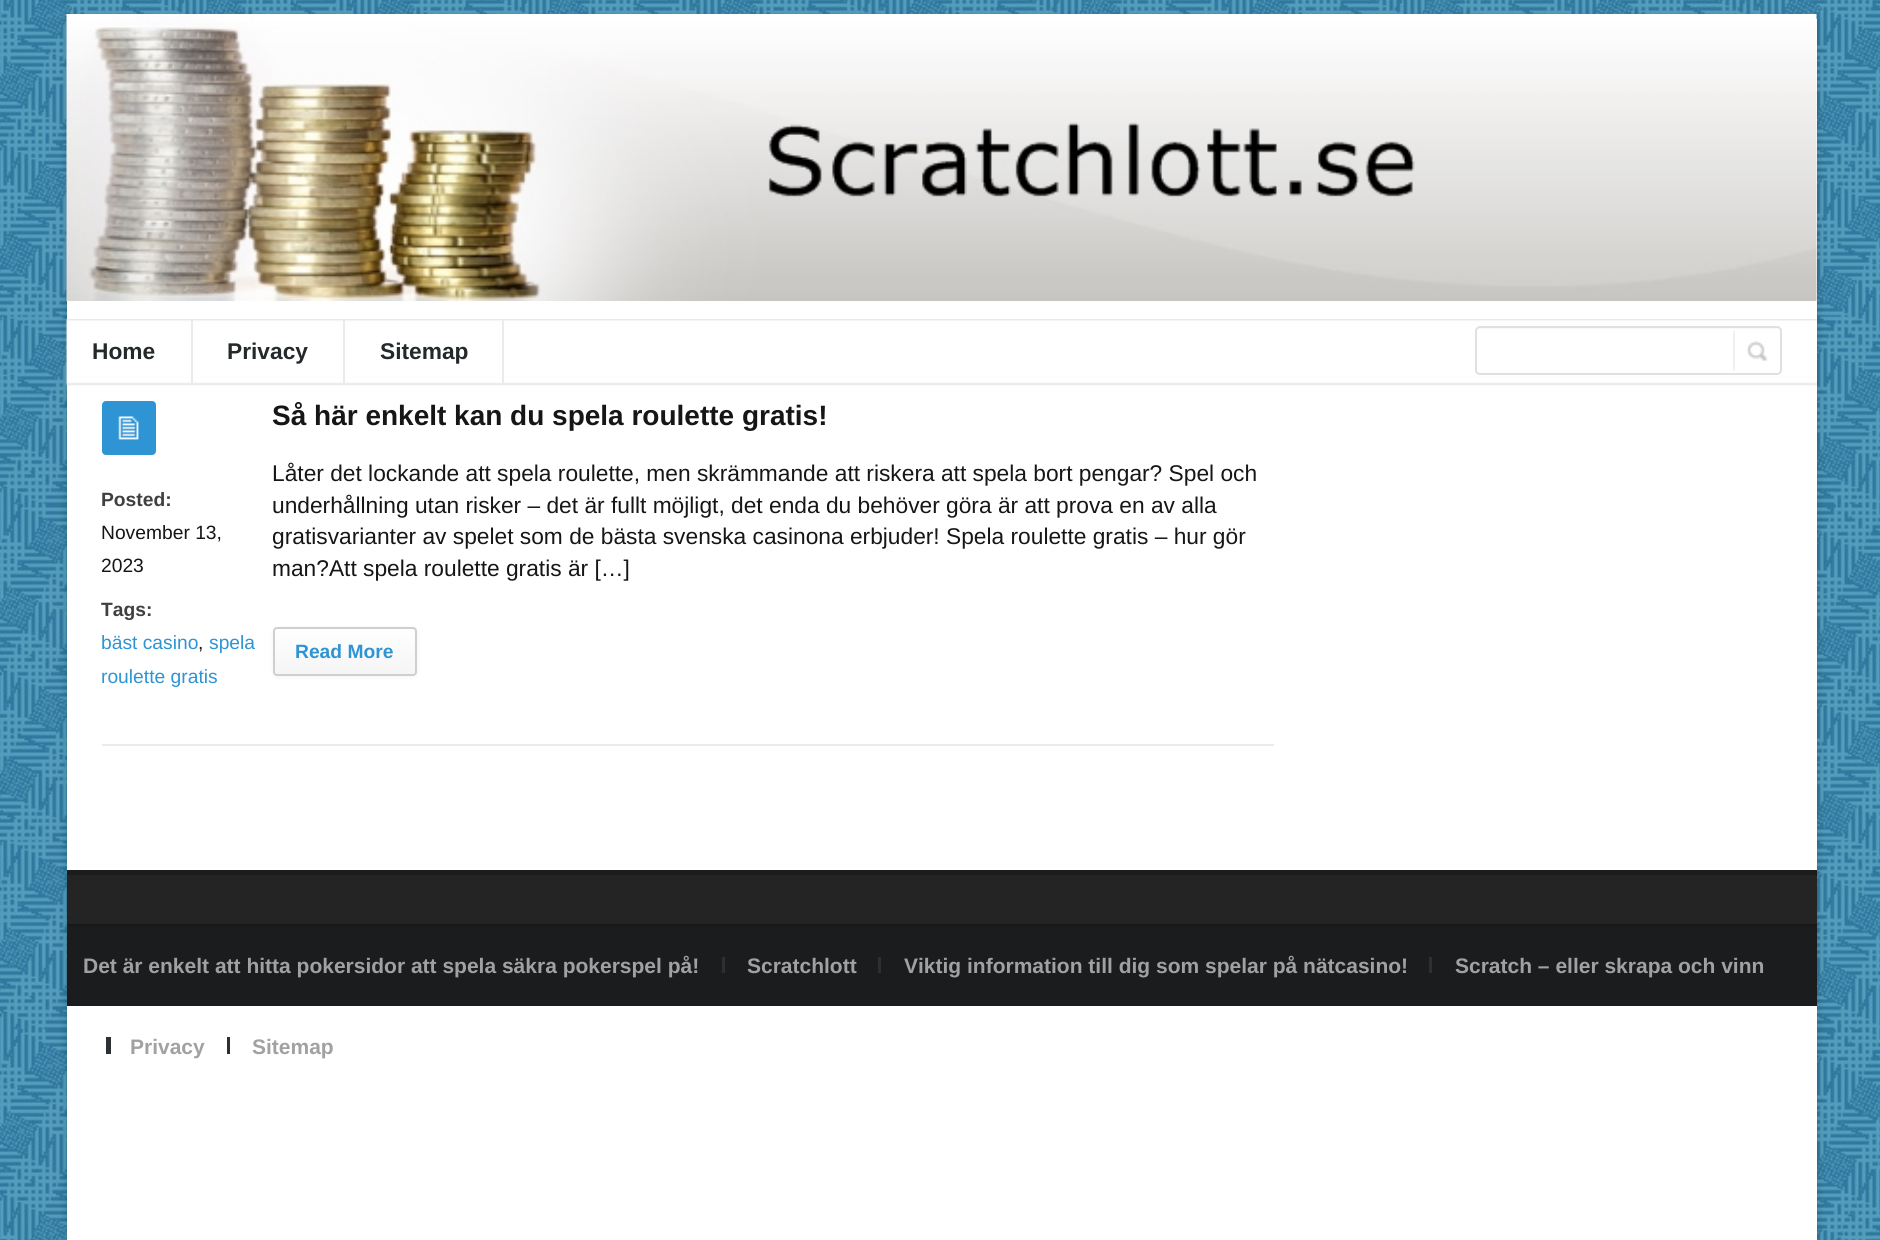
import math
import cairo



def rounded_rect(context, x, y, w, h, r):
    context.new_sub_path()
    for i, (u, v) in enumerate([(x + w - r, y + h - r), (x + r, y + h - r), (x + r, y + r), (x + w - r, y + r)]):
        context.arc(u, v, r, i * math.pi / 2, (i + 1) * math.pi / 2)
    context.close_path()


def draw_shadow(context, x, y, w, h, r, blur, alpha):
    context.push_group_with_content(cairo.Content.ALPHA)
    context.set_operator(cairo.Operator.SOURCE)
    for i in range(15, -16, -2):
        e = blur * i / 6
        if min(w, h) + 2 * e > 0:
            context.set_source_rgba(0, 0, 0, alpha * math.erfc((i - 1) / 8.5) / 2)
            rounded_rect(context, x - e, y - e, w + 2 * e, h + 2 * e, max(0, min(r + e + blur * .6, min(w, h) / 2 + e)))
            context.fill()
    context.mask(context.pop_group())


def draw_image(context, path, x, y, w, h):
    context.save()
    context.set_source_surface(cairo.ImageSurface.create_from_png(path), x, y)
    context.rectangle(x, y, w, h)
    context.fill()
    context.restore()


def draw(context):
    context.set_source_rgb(1, 1, 1)
    context.paint()
    draw_image(context, "images/1.png", 0, 0, 1880, 1240)
    context.set_source_rgb(0, 0, 0)
    draw_shadow(context, 67, 19, 1750, 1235, 0, 4.5, 0.22)
    context.set_source_rgb(1, 1, 1)
    context.rectangle(67, 19, 1750, 1221)
    context.fill()
    draw_image(context, "images/2.png", 66, 14, 1751, 287)
    draw_image(context, "images/3.png", 65, 319, 1752, 67)
    context.set_source_rgb(235 / 255, 235 / 255, 236 / 255)
    context.rectangle(191, 319, 2, 66)
    context.fill()
    context.rectangle(343, 319, 2, 66)
    context.fill()
    context.rectangle(502, 319, 2, 66)
    context.fill()
    draw_image(context, "images/4.png", 1476, 327, 305, 2)
    rounded_rect(context, 1476, 327, 305, 47, 4)
    context.set_source_rgb(224 / 255, 224 / 255, 224 / 255)
    context.stroke()
    context.set_source_rgb(240 / 255, 240 / 255, 240 / 255)
    context.rectangle(1733, 331, 2, 40)
    context.fill()
    draw_image(context, "images/5.png", 1746, 341, 22, 20)
    context.set_source_rgb(47 / 255, 148 / 255, 212 / 255)
    rounded_rect(context, 102, 401, 54, 54, 4)
    context.fill()
    draw_image(context, "images/6.png", 118, 416, 21, 24)
    context.set_source_rgb(0, 0, 0)
    draw_shadow(context, 273, 628, 144, 49, 4, 2, 0.05)
    context.save()
    rounded_rect(context, 273, 627, 144, 49, 4)
    context.clip()
    gradient = cairo.LinearGradient(345, 628, 345, 674)
    gradient.add_color_stop_rgba(0, 1, 1, 1, 1)
    gradient.add_color_stop_rgba(1, 245 / 255, 245 / 255, 245 / 255, 1)
    context.set_source(gradient)
    context.rectangle(273, 628, 144, 46)
    context.fill()
    context.restore()
    rounded_rect(context, 274, 628, 142, 47, 3)
    context.set_source_rgb(205 / 255, 208 / 255, 209 / 255)
    context.stroke()
    context.set_source_rgb(235 / 255, 235 / 255, 235 / 255)
    context.rectangle(102, 744, 1172, 2)
    context.fill()
    context.set_source_rgb(26 / 255, 28 / 255, 30 / 255)
    context.rectangle(67, 870, 1750, 5)
    context.fill()
    context.set_source_rgb(36 / 255, 36 / 255, 36 / 255)
    context.rectangle(67, 875, 1750, 49)
    context.fill()
    context.set_source_rgb(26 / 255, 28 / 255, 30 / 255)
    context.rectangle(67, 926, 1750, 80)
    context.fill()
    context.set_source_rgb(22 / 255, 24 / 255, 26 / 255)
    context.rectangle(67, 924, 1750, 2)
    context.fill()
    context.set_source_rgb(44 / 255, 48 / 255, 51 / 255)
    context.rectangle(722, 957, 3, 16)
    context.fill()
    context.rectangle(878, 957, 3, 16)
    context.fill()
    context.rectangle(1429, 957, 3, 16)
    context.fill()
    context.rectangle(106, 1037, 5, 17)
    context.fill()
    context.rectangle(227, 1037, 3, 17)
    context.fill()
    context.select_font_face("Liberation Sans", cairo.FontSlant.NORMAL, cairo.FontWeight.BOLD)
    context.set_font_size(22.75)
    context.set_source_rgb(36 / 255, 41 / 255, 43 / 255)
    context.move_to(92, 359)
    context.show_text("Home")
    context.move_to(227, 359)
    context.show_text("Privacy")
    context.move_to(380, 359)
    context.show_text("Sitemap")
    context.set_font_size(19.25)
    context.set_source_rgb(64 / 255, 64 / 255, 64 / 255)
    context.move_to(101, 506)
    context.show_text("Posted:")
    context.select_font_face("Liberation Sans")
    context.set_source_rgb(22 / 255, 22 / 255, 24 / 255)
    context.move_to(101, 539)
    context.show_text("November 13,")
    context.move_to(101, 572)
    context.show_text("2023")
    context.select_font_face("Liberation Sans", cairo.FontSlant.NORMAL, cairo.FontWeight.BOLD)
    context.set_source_rgb(64 / 255, 64 / 255, 64 / 255)
    context.move_to(101, 616)
    context.show_text("Tags:")
    context.select_font_face("Liberation Sans")
    context.set_source_rgb(47 / 255, 148 / 255, 212 / 255)
    context.move_to(101, 649)
    context.show_text("bäst casino")
    context.set_source_rgb(22 / 255, 22 / 255, 24 / 255)
    context.move_to(198, 649)
    context.show_text(",")
    context.set_source_rgb(47 / 255, 148 / 255, 212 / 255)
    context.move_to(209, 649)
    context.show_text("spela")
    context.move_to(101, 683)
    context.show_text("roulette gratis")
    context.select_font_face("Liberation Sans", cairo.FontSlant.NORMAL, cairo.FontWeight.BOLD)
    context.set_font_size(28)
    context.set_source_rgb(22 / 255, 22 / 255, 24 / 255)
    context.move_to(272, 425)
    context.show_text("Så här enkelt kan du spela roulette gratis!")
    context.select_font_face("Liberation Sans")
    context.set_font_size(22.75)
    context.move_to(272, 481)
    context.show_text("Låter det lockande att spela roulette, men skrämmande att riskera att spela bort pengar? Spel och")
    context.move_to(272, 513)
    context.show_text("underhållning utan risker – det är fullt möjligt, det enda du behöver göra är att prova en av alla")
    context.move_to(272, 544)
    context.show_text("gratisvarianter av spelet som de bästa svenska casinona erbjuder! Spela roulette gratis – hur gör")
    context.move_to(272, 576)
    context.show_text("man?Att spela roulette gratis är […]")
    context.select_font_face("Liberation Sans", cairo.FontSlant.NORMAL, cairo.FontWeight.BOLD)
    context.set_font_size(19.25)
    context.set_source_rgb(47 / 255, 148 / 255, 212 / 255)
    context.move_to(295, 658)
    context.show_text("Read More")
    context.set_font_size(21)
    context.set_source_rgb(161 / 255, 161 / 255, 161 / 255)
    context.move_to(83, 973)
    context.show_text("Det är enkelt att hitta pokersidor att spela säkra pokerspel på!")
    context.move_to(747, 973)
    context.show_text("Scratchlott")
    context.move_to(904, 973)
    context.show_text("Viktig information till dig som spelar på nätcasino!")
    context.move_to(1455, 973)
    context.show_text("Scratch – eller skrapa och vinn")
    context.move_to(130, 1054)
    context.show_text("Privacy")
    context.move_to(252, 1054)
    context.show_text("Sitemap")


surface = cairo.ImageSurface(cairo.Format.RGB24, 1880, 1240)
context = cairo.Context(surface)
options = cairo.FontOptions()
options.set_hint_metrics(cairo.HintMetrics.OFF)
options.set_hint_style(cairo.HintStyle.NONE)
context.set_font_options(options)
context.set_miter_limit(4)
draw(context)
surface.write_to_png("out.png")
